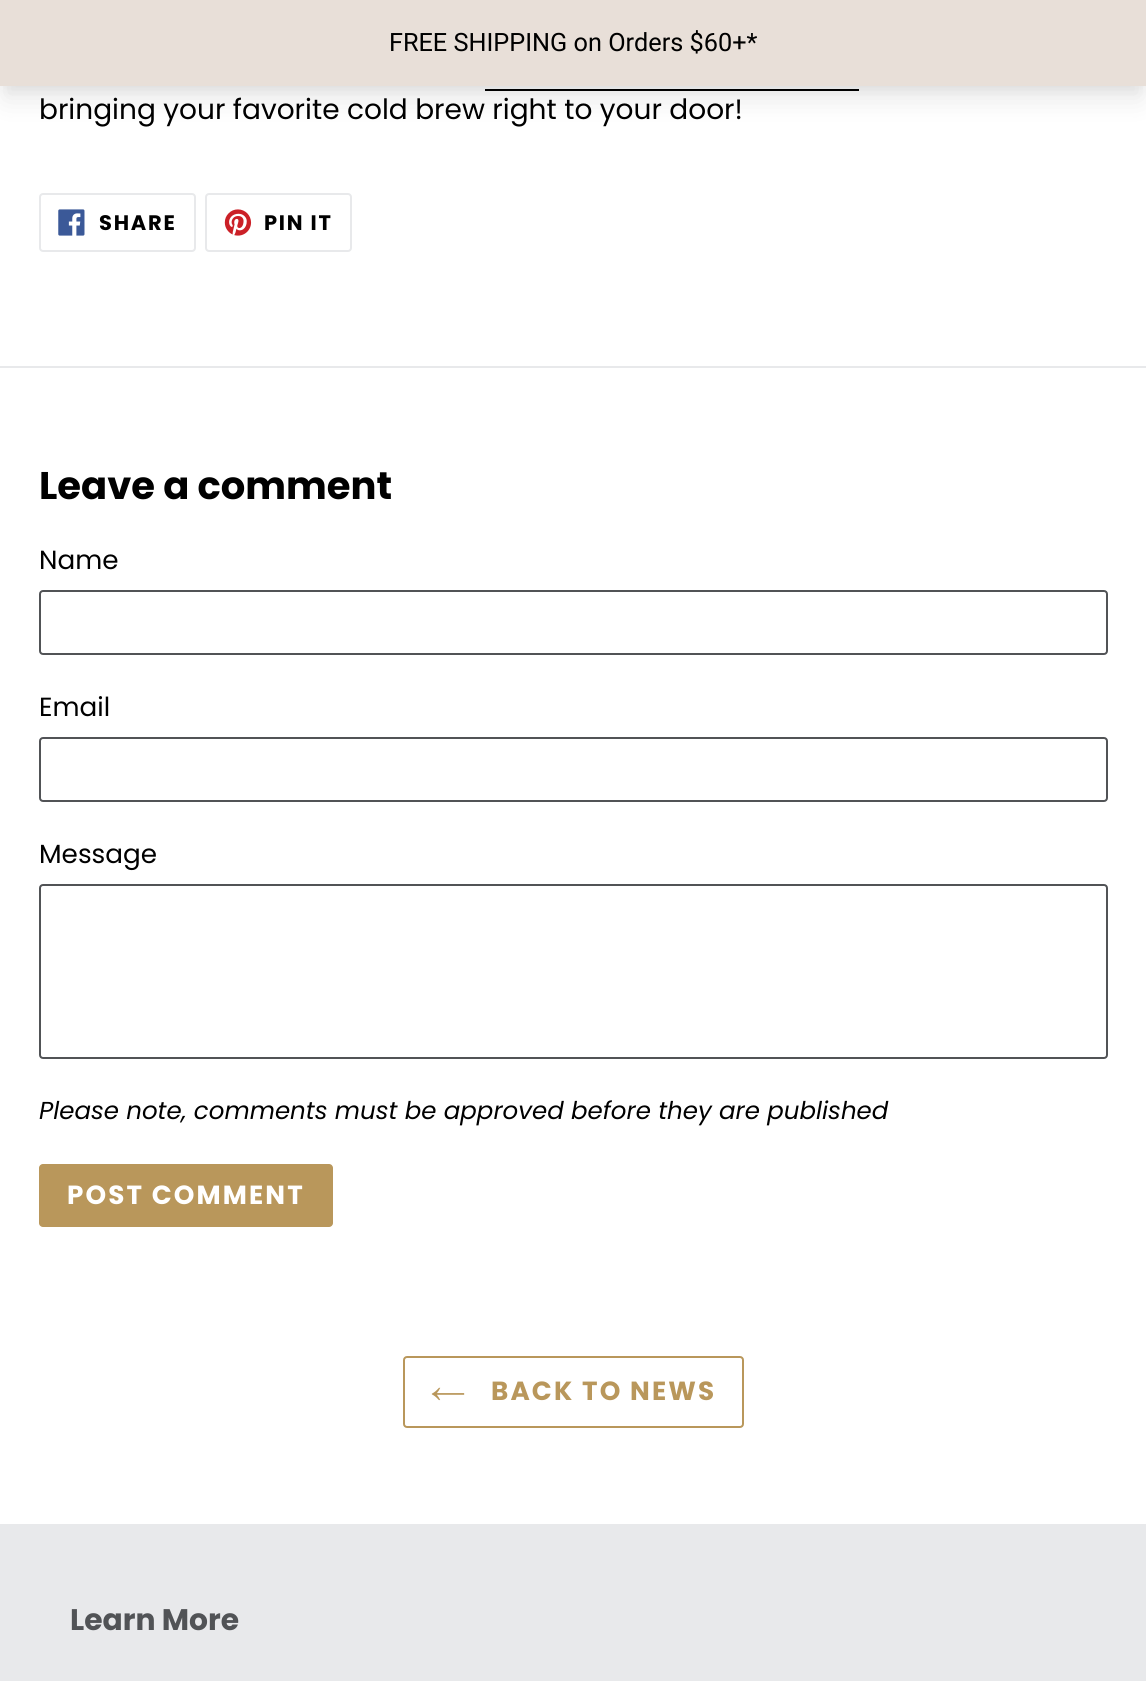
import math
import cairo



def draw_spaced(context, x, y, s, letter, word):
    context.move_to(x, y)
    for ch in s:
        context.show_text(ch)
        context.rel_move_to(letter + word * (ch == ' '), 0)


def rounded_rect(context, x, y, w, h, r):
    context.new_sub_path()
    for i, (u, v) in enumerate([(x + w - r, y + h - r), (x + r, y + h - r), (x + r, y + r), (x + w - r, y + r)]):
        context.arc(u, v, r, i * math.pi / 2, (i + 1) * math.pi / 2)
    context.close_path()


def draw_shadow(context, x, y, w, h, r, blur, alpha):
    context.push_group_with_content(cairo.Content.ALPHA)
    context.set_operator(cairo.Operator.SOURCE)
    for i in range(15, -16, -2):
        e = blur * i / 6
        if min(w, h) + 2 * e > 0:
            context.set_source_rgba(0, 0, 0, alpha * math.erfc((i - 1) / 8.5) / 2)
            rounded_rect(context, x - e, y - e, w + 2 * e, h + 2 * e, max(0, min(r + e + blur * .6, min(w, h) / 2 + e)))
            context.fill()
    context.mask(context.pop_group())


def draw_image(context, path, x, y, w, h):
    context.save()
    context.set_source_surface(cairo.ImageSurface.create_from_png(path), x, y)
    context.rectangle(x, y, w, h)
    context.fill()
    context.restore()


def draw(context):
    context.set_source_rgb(1, 1, 1)
    context.paint()
    context.set_source_rgb(0, 0, 0)
    context.rectangle(485, 89, 374, 2)
    context.fill()
    context.set_source_rgb(0, 0, 0)
    draw_shadow(context, 4, 11, 1139, 78, 0, 5, 0.05)
    draw_shadow(context, 5, 23, 1136, 75, 0, 13, 0.1)
    context.set_source_rgb(232 / 255, 223 / 255, 216 / 255)
    context.rectangle(0, 0, 1146, 86)
    context.fill()
    rounded_rect(context, 40, 194, 155, 57, 3)
    context.set_source_rgb(232 / 255, 233 / 255, 235 / 255)
    context.stroke()
    draw_image(context, "images/1.png", 58, 209, 27, 27)
    rounded_rect(context, 206, 194, 145, 57, 3)
    context.stroke()
    draw_image(context, "images/2.png", 224, 209, 28, 27)
    context.rectangle(0, 366, 1146, 2)
    context.fill()
    rounded_rect(context, 40, 591, 1067, 63, 3)
    context.set_source_rgb(81 / 255, 83 / 255, 86 / 255)
    context.stroke()
    rounded_rect(context, 40, 738, 1067, 63, 3)
    context.stroke()
    rounded_rect(context, 40, 885, 1067, 173, 3)
    context.stroke()
    context.set_source_rgb(185 / 255, 151 / 255, 91 / 255)
    rounded_rect(context, 39, 1164, 294, 63, 4)
    context.fill()
    rounded_rect(context, 404, 1357, 339, 70, 3)
    context.stroke()
    draw_image(context, "images/3.png", 431, 1387, 34, 14)
    context.set_source_rgb(232 / 255, 233 / 255, 235 / 255)
    context.rectangle(0, 1524, 1146, 157)
    context.fill()
    context.select_font_face("Roboto")
    context.set_font_size(25.25)
    context.set_source_rgb(0, 0, 0)
    context.move_to(389, 51)
    context.show_text("FREE SHIPPING on Orders $60+*")
    context.select_font_face("Poppins")
    context.set_font_size(28)
    context.move_to(39, 119)
    context.show_text("bringing your favorite cold brew right to your door!")
    context.select_font_face("Poppins", cairo.FontSlant.NORMAL, cairo.FontWeight.BOLD)
    context.set_font_size(21)
    draw_spaced(context, 99, 230, "SHARE", 1.75, 0)
    draw_spaced(context, 264, 230, "PIN IT", 1.75, 0)
    context.set_font_size(38.5)
    context.move_to(39, 499)
    context.show_text("Leave a comment")
    context.select_font_face("Poppins")
    context.set_font_size(26.25)
    context.move_to(39, 569)
    context.show_text("Name")
    context.move_to(39, 716)
    context.show_text("Email")
    context.move_to(39, 863)
    context.show_text("Message")
    context.select_font_face("Poppins", cairo.FontSlant.ITALIC)
    context.set_font_size(24.5)
    context.move_to(39, 1119)
    context.show_text("Please note, comments must be approved before they are published")
    context.select_font_face("Poppins", cairo.FontSlant.NORMAL, cairo.FontWeight.BOLD)
    context.set_font_size(26.25)
    context.set_source_rgb(1, 1, 1)
    draw_spaced(context, 67, 1204, "POST COMMENT", 2.1, 0)
    context.set_source_rgb(185 / 255, 151 / 255, 91 / 255)
    draw_spaced(context, 491, 1400, "BACK TO NEWS", 2.1, 0)
    context.set_font_size(29.75)
    context.set_source_rgb(81 / 255, 83 / 255, 86 / 255)
    context.move_to(70, 1630)
    context.show_text("Learn More")


surface = cairo.ImageSurface(cairo.Format.RGB24, 1146, 1681)
context = cairo.Context(surface)
options = cairo.FontOptions()
options.set_hint_metrics(cairo.HintMetrics.OFF)
options.set_hint_style(cairo.HintStyle.NONE)
context.set_font_options(options)
context.set_miter_limit(4)
draw(context)
surface.write_to_png("out.png")
